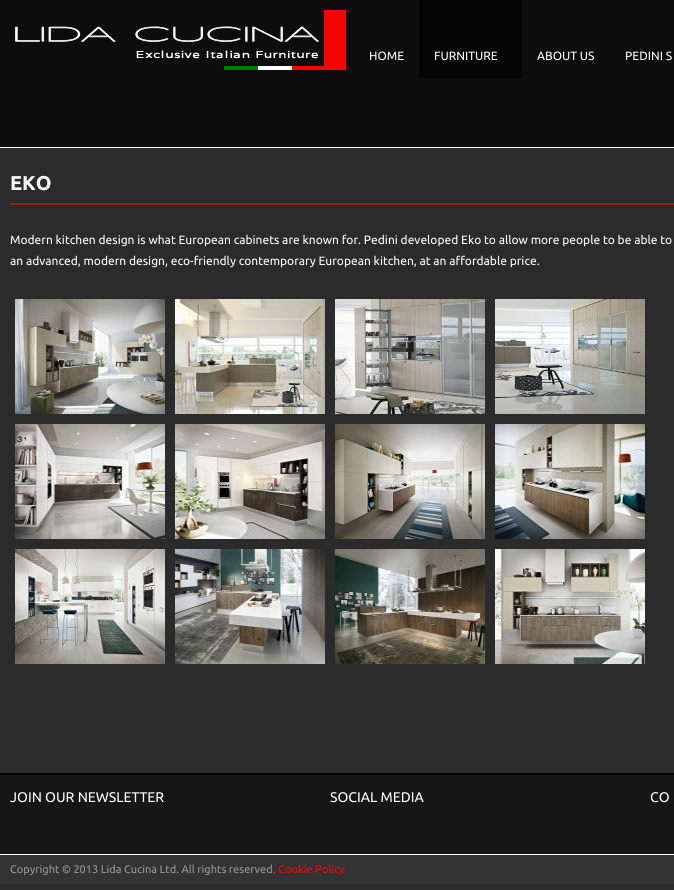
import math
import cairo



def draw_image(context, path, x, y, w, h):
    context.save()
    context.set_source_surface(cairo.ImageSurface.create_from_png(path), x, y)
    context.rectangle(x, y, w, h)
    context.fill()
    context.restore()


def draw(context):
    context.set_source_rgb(43 / 255, 43 / 255, 43 / 255)
    context.paint()
    context.set_source_rgb(13 / 255, 13 / 255, 13 / 255)
    context.rectangle(0, 0, 674, 147)
    context.fill()
    context.set_source_rgb(1, 1, 1)
    context.rectangle(0, 147, 674, 1)
    context.fill()
    draw_image(context, "images/1.png", 15, 10, 331, 60)
    context.set_source_rgb(4 / 255, 4 / 255, 4 / 255)
    context.rectangle(419, 0, 103, 78)
    context.fill()
    context.set_source_rgb(143 / 255, 40 / 255, 19 / 255)
    context.rectangle(10, 203, 664, 2)
    context.fill()
    draw_image(context, "images/2.png", 15, 299, 150, 115)
    draw_image(context, "images/3.png", 175, 299, 150, 115)
    draw_image(context, "images/4.png", 335, 299, 150, 115)
    draw_image(context, "images/5.png", 495, 299, 150, 115)
    draw_image(context, "images/6.png", 15, 424, 150, 115)
    draw_image(context, "images/7.png", 175, 424, 150, 115)
    draw_image(context, "images/8.png", 335, 424, 150, 115)
    draw_image(context, "images/9.png", 495, 424, 150, 115)
    draw_image(context, "images/10.png", 15, 549, 150, 115)
    draw_image(context, "images/11.png", 175, 549, 150, 115)
    draw_image(context, "images/12.png", 335, 549, 150, 115)
    draw_image(context, "images/13.png", 495, 549, 150, 115)
    context.set_source_rgb(22 / 255, 22 / 255, 22 / 255)
    context.rectangle(0, 775, 674, 79)
    context.fill()
    context.set_source_rgb(0, 0, 0)
    context.rectangle(0, 773, 674, 2)
    context.fill()
    context.set_source_rgb(51 / 255, 51 / 255, 51 / 255)
    context.rectangle(0, 855, 674, 29)
    context.fill()
    context.set_source_rgb(1, 1, 1)
    context.rectangle(0, 854, 674, 1)
    context.fill()
    context.select_font_face("Ubuntu")
    context.set_font_size(12)
    context.move_to(369, 60)
    context.show_text("HOME")
    context.move_to(434, 60)
    context.show_text("FURNITURE")
    context.move_to(537, 60)
    context.show_text("ABOUT US")
    context.move_to(625, 60)
    context.show_text("PEDINI S")
    context.select_font_face("Ubuntu", cairo.FontSlant.NORMAL, cairo.FontWeight.BOLD)
    context.set_font_size(20)
    context.move_to(10, 190)
    context.show_text("EKO")
    context.select_font_face("Ubuntu")
    context.set_font_size(12)
    context.move_to(10, 244)
    context.show_text("Modern kitchen design is what European cabinets are known for. Pedini developed Eko to allow more people to be able to")
    context.move_to(10, 265)
    context.show_text("an advanced, modern design, eco-friendly contemporary European kitchen, at an affordable price.")
    context.set_font_size(14)
    context.move_to(10, 802)
    context.show_text("JOIN OUR NEWSLETTER")
    context.move_to(330, 802)
    context.show_text("SOCIAL MEDIA")
    context.move_to(650, 802)
    context.show_text("CO")
    context.set_font_size(11)
    context.set_source_rgb(153 / 255, 153 / 255, 153 / 255)
    context.move_to(10, 873)
    context.show_text("Copyright © 2013 Lida Cucina Ltd. All rights reserved")
    context.set_source_rgb(254 / 255, 0, 0)
    context.move_to(273, 873)
    context.show_text(". Cookie Policy")


surface = cairo.ImageSurface(cairo.Format.RGB24, 674, 890)
context = cairo.Context(surface)
options = cairo.FontOptions()
options.set_hint_metrics(cairo.HintMetrics.OFF)
options.set_hint_style(cairo.HintStyle.NONE)
context.set_font_options(options)
context.set_miter_limit(4)
draw(context)
surface.write_to_png("out.png")
